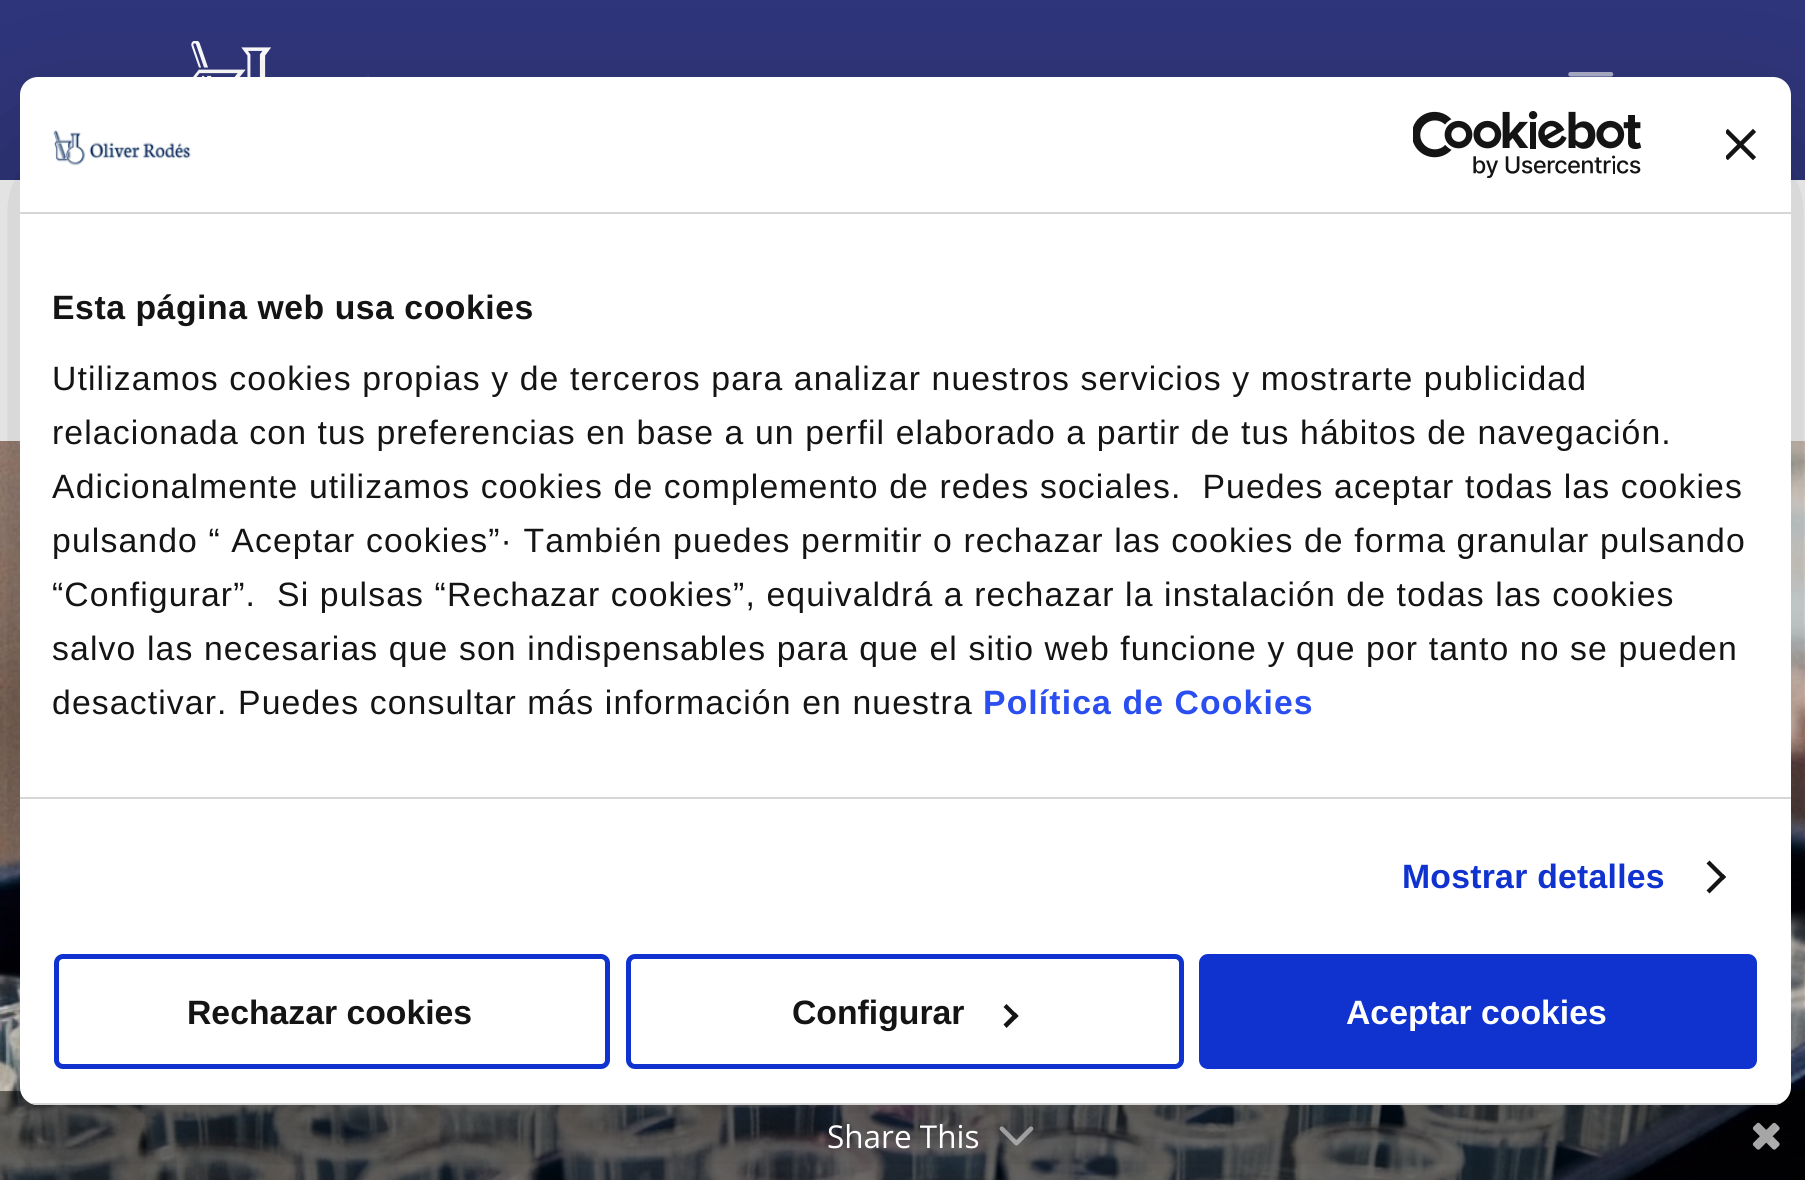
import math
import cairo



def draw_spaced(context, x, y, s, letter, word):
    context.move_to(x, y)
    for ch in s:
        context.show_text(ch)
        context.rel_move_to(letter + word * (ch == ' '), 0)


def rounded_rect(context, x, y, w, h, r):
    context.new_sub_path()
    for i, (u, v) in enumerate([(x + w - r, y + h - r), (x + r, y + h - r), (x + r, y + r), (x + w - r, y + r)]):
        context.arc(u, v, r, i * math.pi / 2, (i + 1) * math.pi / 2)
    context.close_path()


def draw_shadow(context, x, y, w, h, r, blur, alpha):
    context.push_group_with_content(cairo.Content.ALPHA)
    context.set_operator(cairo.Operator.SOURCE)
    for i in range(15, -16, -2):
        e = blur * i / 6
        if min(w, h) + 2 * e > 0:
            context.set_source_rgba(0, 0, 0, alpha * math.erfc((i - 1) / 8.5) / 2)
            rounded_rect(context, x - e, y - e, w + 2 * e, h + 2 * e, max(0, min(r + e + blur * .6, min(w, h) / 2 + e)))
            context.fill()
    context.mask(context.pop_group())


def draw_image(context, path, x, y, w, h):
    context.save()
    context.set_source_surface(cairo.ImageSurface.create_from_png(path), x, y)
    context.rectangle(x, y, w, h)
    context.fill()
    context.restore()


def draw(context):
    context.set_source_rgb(1, 1, 1)
    context.paint()
    context.set_source_rgb(47 / 255, 53 / 255, 122 / 255)
    context.rectangle(0, 0, 1805, 180)
    context.fill()
    draw_image(context, "images/1.png", 191, 41, 178, 36)
    draw_image(context, "images/2.png", 1568, 72, 46, 5)
    draw_image(context, "images/3.png", 0, 441, 1805, 739)
    context.set_source_rgba(0, 0, 0, 0.5)
    context.rectangle(0, 1091, 1805, 89)
    context.fill()
    draw_image(context, "images/7.png", 999, 1126, 35, 20)
    draw_image(context, "images/8.png", 1752, 1122, 28, 28)
    context.set_source_rgb(0, 0, 0)
    draw_shadow(context, 20, 149, 1771, 1028, 18, 76.5, 0.3)
    context.set_source_rgb(1, 1, 1)
    rounded_rect(context, 20, 77, 1771, 1028, 18)
    context.fill()
    context.set_source_rgb(214 / 255, 214 / 255, 214 / 255)
    context.rectangle(20, 212, 1771, 2)
    context.fill()
    draw_image(context, "images/4.png", 53, 130, 138, 36)
    draw_image(context, "images/5.png", 1413, 111, 229, 67)
    draw_image(context, "images/6.png", 1726, 128, 30, 32)
    context.rectangle(20, 797, 1771, 2)
    context.fill()
    context.set_source_rgb(20 / 255, 20 / 255, 20 / 255)
    context.new_path()
    context.move_to(1709.5, 860.5)
    context.line_to(1726, 877)
    context.line_to(1723, 880)
    context.line_to(1706.5, 863.5)
    context.close_path()
    context.fill()
    context.new_path()
    context.move_to(1723, 874)
    context.line_to(1726, 877)
    context.line_to(1709.5, 893.5)
    context.line_to(1706.5, 890.5)
    context.close_path()
    context.fill()
    context.save()
    rounded_rect(context, 20, 77, 1771, 1028, 18)
    context.clip()
    context.set_source_rgb(214 / 255, 214 / 255, 214 / 255)
    context.rectangle(30, 1103, 1751, 2)
    context.fill()
    context.restore()
    rounded_rect(context, 56.5, 956.5, 551, 110, 6.5)
    context.set_source_rgb(16 / 255, 50 / 255, 207 / 255)
    context.set_line_width(5)
    context.stroke()
    rounded_rect(context, 628.5, 956.5, 553, 110, 6.5)
    context.stroke()
    context.set_source_rgb(20 / 255, 20 / 255, 20 / 255)
    context.new_path()
    context.move_to(1006.5, 1004)
    context.line_to(1018.5, 1016)
    context.line_to(1015.5, 1019)
    context.line_to(1003.5, 1007)
    context.close_path()
    context.fill()
    context.new_path()
    context.move_to(1015.5, 1012.5)
    context.line_to(1018.5, 1016)
    context.line_to(1006.5, 1028)
    context.line_to(1003.5, 1024.5)
    context.close_path()
    context.fill()
    context.set_source_rgb(16 / 255, 50 / 255, 207 / 255)
    rounded_rect(context, 1201.5, 956.5, 553, 110, 6.5)
    context.fill_preserve()
    context.stroke()
    context.select_font_face("Liberation Sans", cairo.FontSlant.NORMAL, cairo.FontWeight.BOLD)
    context.set_font_size(33.75)
    context.set_source_rgb(20 / 255, 20 / 255, 20 / 255)
    draw_spaced(context, 52, 319, "Esta página web usa cookies", 0.55, 0)
    context.select_font_face("Liberation Sans")
    draw_spaced(context, 52, 390, "Utilizamos cookies propias y de terceros para analizar nuestros servicios y mostrarte publicidad", 1.12, 0)
    draw_spaced(context, 52, 444, "relacionada con tus preferencias en base a un perfil elaborado a partir de tus hábitos de navegación.", 1.12, 0)
    draw_spaced(context, 52, 498, "Adicionalmente utilizamos cookies de complemento de redes sociales.  Puedes aceptar todas las cookies", 1.12, 0)
    draw_spaced(context, 52, 552, "pulsando “ Aceptar cookies”· También puedes permitir o rechazar las cookies de forma granular pulsando", 1.12, 0)
    draw_spaced(context, 52, 606, "“Configurar”.  Si pulsas “Rechazar cookies”, equivaldrá a rechazar la instalación de todas las cookies", 1.12, 0)
    draw_spaced(context, 52, 660, "salvo las necesarias que son indispensables para que el sitio web funcione y que por tanto no se pueden", 1.12, 0)
    draw_spaced(context, 52, 714, "desactivar. Puedes consultar más información en nuestra", 1.12, 0)
    context.select_font_face("Liberation Sans", cairo.FontSlant.NORMAL, cairo.FontWeight.BOLD)
    context.set_source_rgb(42 / 255, 78 / 255, 239 / 255)
    draw_spaced(context, 983, 714, "Política de Cookies", 1.12, 0)
    context.set_source_rgb(16 / 255, 50 / 255, 207 / 255)
    draw_spaced(context, 1402, 888, "Mostrar detalles", 0.25, 0)
    context.set_source_rgb(20 / 255, 20 / 255, 20 / 255)
    context.move_to(187, 1024)
    context.show_text("Rechazar cookies")
    context.move_to(792, 1024)
    context.show_text("Configurar")
    context.set_source_rgb(1, 1, 1)
    context.move_to(1346, 1024)
    context.show_text("Aceptar cookies")
    context.select_font_face("Open Sans")
    context.set_font_size(31.5)
    context.move_to(827, 1148)
    context.show_text("Share This")


surface = cairo.ImageSurface(cairo.Format.RGB24, 1805, 1180)
context = cairo.Context(surface)
options = cairo.FontOptions()
options.set_hint_metrics(cairo.HintMetrics.OFF)
options.set_hint_style(cairo.HintStyle.NONE)
context.set_font_options(options)
context.set_miter_limit(4)
draw(context)
surface.write_to_png("out.png")
